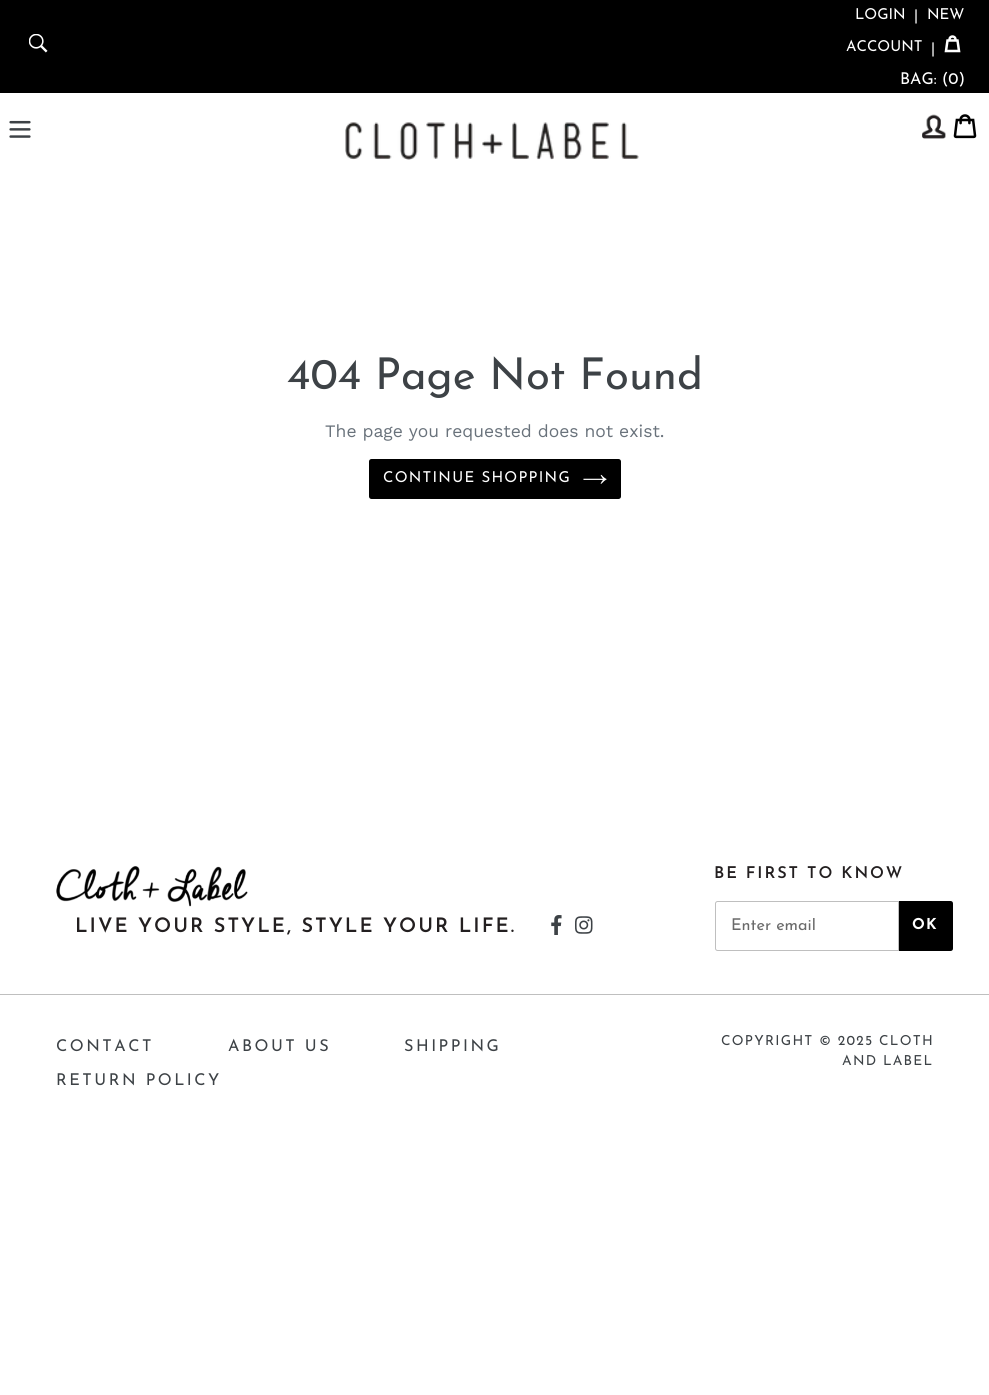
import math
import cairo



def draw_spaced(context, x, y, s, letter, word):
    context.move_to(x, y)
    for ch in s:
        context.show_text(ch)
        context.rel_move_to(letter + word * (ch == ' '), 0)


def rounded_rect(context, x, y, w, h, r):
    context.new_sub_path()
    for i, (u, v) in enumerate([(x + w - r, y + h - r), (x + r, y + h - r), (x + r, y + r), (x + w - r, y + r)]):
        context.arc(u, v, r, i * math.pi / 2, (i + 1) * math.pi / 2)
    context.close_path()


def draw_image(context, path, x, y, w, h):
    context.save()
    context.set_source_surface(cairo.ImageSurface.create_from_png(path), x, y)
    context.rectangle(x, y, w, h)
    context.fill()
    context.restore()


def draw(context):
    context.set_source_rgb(1, 1, 1)
    context.paint()
    context.set_source_rgb(0, 0, 0)
    context.rectangle(0, 0, 989, 93)
    context.fill()
    draw_image(context, "images/1.png", 29, 34, 19, 19)
    context.new_path()
    context.move_to(959, 51)
    context.line_to(946, 51)
    context.line_to(947.5, 40.5)
    context.line_to(957.5, 40.5)
    context.close_path()
    context.move_to(949.5, 39.5)
    context.curve_to(949.5, 35.5, 955.5, 35.5, 955.5, 39.5)
    context.set_source_rgb(1, 1, 1)
    context.set_line_width(2.5)
    context.stroke()
    draw_image(context, "images/2.png", 9, 120, 22, 18)
    draw_image(context, "images/3.png", 345, 122, 294, 38)
    draw_image(context, "images/4.png", 922, 114, 24, 25)
    draw_image(context, "images/5.png", 953, 114, 24, 25)
    context.set_source_rgb(0, 0, 0)
    rounded_rect(context, 369, 459, 252, 40, 2.5)
    context.fill()
    draw_image(context, "images/6.png", 583, 474, 24, 10)
    context.set_source_rgb(191 / 255, 191 / 255, 191 / 255)
    context.rectangle(0, 994, 989, 1)
    context.fill()
    draw_image(context, "images/7.png", 56, 866, 192, 41)
    draw_image(context, "images/8.png", 551, 915, 11, 20)
    draw_image(context, "images/9.png", 575, 916, 18, 18)
    context.new_path()
    context.move_to(717.5, 901.5)
    context.line_to(898.5, 901.5)
    context.line_to(898.5, 950.5)
    context.line_to(717.5, 950.5)
    context.curve_to(716.5, 950.5, 715.5, 949.5, 715.5, 948.5)
    context.line_to(715.5, 903.5)
    context.curve_to(715.5, 902.5, 716.5, 901.5, 717.5, 901.5)
    context.close_path()
    context.set_line_width(1)
    context.stroke()
    context.set_source_rgb(0, 0, 0)
    context.new_path()
    context.move_to(899, 901)
    context.line_to(950.5, 901)
    context.curve_to(952, 901, 953, 902, 953, 903.5)
    context.line_to(953, 948.5)
    context.curve_to(953, 950, 952, 951, 950.5, 951)
    context.line_to(899, 951)
    context.close_path()
    context.fill()
    context.select_font_face("Josefin Sans")
    context.set_font_size(15)
    context.set_source_rgb(1, 1, 1)
    context.move_to(855, 19)
    context.show_text("LOGIN")
    context.move_to(914, 20)
    context.show_text("|")
    context.move_to(927, 19)
    context.show_text("NEW")
    context.move_to(846, 51)
    context.show_text("ACCOUNT")
    context.move_to(931, 53)
    context.show_text("|")
    context.set_font_size(16.25)
    context.move_to(900, 84)
    context.show_text("BAG: (0)")
    context.select_font_face("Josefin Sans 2")
    context.set_font_size(43.75)
    context.set_source_rgb(61 / 255, 66 / 255, 70 / 255)
    context.move_to(287, 389)
    context.show_text("404 Page Not Found")
    context.select_font_face("Work Sans")
    context.set_font_size(17.5)
    context.set_source_rgb(105 / 255, 114 / 255, 123 / 255)
    context.move_to(325, 437)
    context.show_text("The page you requested does not exist.")
    context.select_font_face("Josefin Sans 2")
    context.set_font_size(15)
    context.set_source_rgb(1, 1, 1)
    draw_spaced(context, 383, 482, "CONTINUE SHOPPING", 1.25, 0)
    context.select_font_face("Josefin Sans SemiBold")
    context.set_font_size(20)
    context.set_source_rgb(35 / 255, 31 / 255, 32 / 255)
    draw_spaced(context, 75, 932, "LIVE YOUR STYLE, STYLE YOUR LIFE.", 2, 0)
    context.set_font_size(16.25)
    draw_spaced(context, 714, 878, "BE FIRST TO KNOW", 1.9, 0)
    context.save()
    context.rectangle(731, 918, 152, 16)
    context.clip()
    context.select_font_face("Josefin Sans")
    context.set_source_rgb(106 / 255, 106 / 255, 106 / 255)
    context.move_to(731, 930)
    context.show_text("Enter email")
    context.restore()
    context.select_font_face("Josefin Sans", cairo.FontSlant.NORMAL, cairo.FontWeight.BOLD)
    context.set_font_size(15)
    context.set_source_rgb(1, 1, 1)
    draw_spaced(context, 912, 929, "OK", 1.25, 0)
    context.select_font_face("Josefin Sans")
    context.set_font_size(16.25)
    context.set_source_rgb(61 / 255, 66 / 255, 70 / 255)
    draw_spaced(context, 56, 1051, "CONTACT", 2.5, 0)
    draw_spaced(context, 228, 1051, "ABOUT US", 2.5, 0)
    draw_spaced(context, 404, 1051, "SHIPPING", 2.5, 0)
    draw_spaced(context, 56, 1085, "RETURN POLICY", 2.5, 0)
    context.set_font_size(13.75)
    draw_spaced(context, 721, 1045, "COPYRIGHT © 2025 CLOTH", 1.25, 0)
    draw_spaced(context, 842, 1065, "AND LABEL", 1.25, 0)


surface = cairo.ImageSurface(cairo.Format.RGB24, 989, 1395)
context = cairo.Context(surface)
options = cairo.FontOptions()
options.set_hint_metrics(cairo.HintMetrics.OFF)
options.set_hint_style(cairo.HintStyle.NONE)
context.set_font_options(options)
context.set_miter_limit(4)
draw(context)
surface.write_to_png("out.png")
